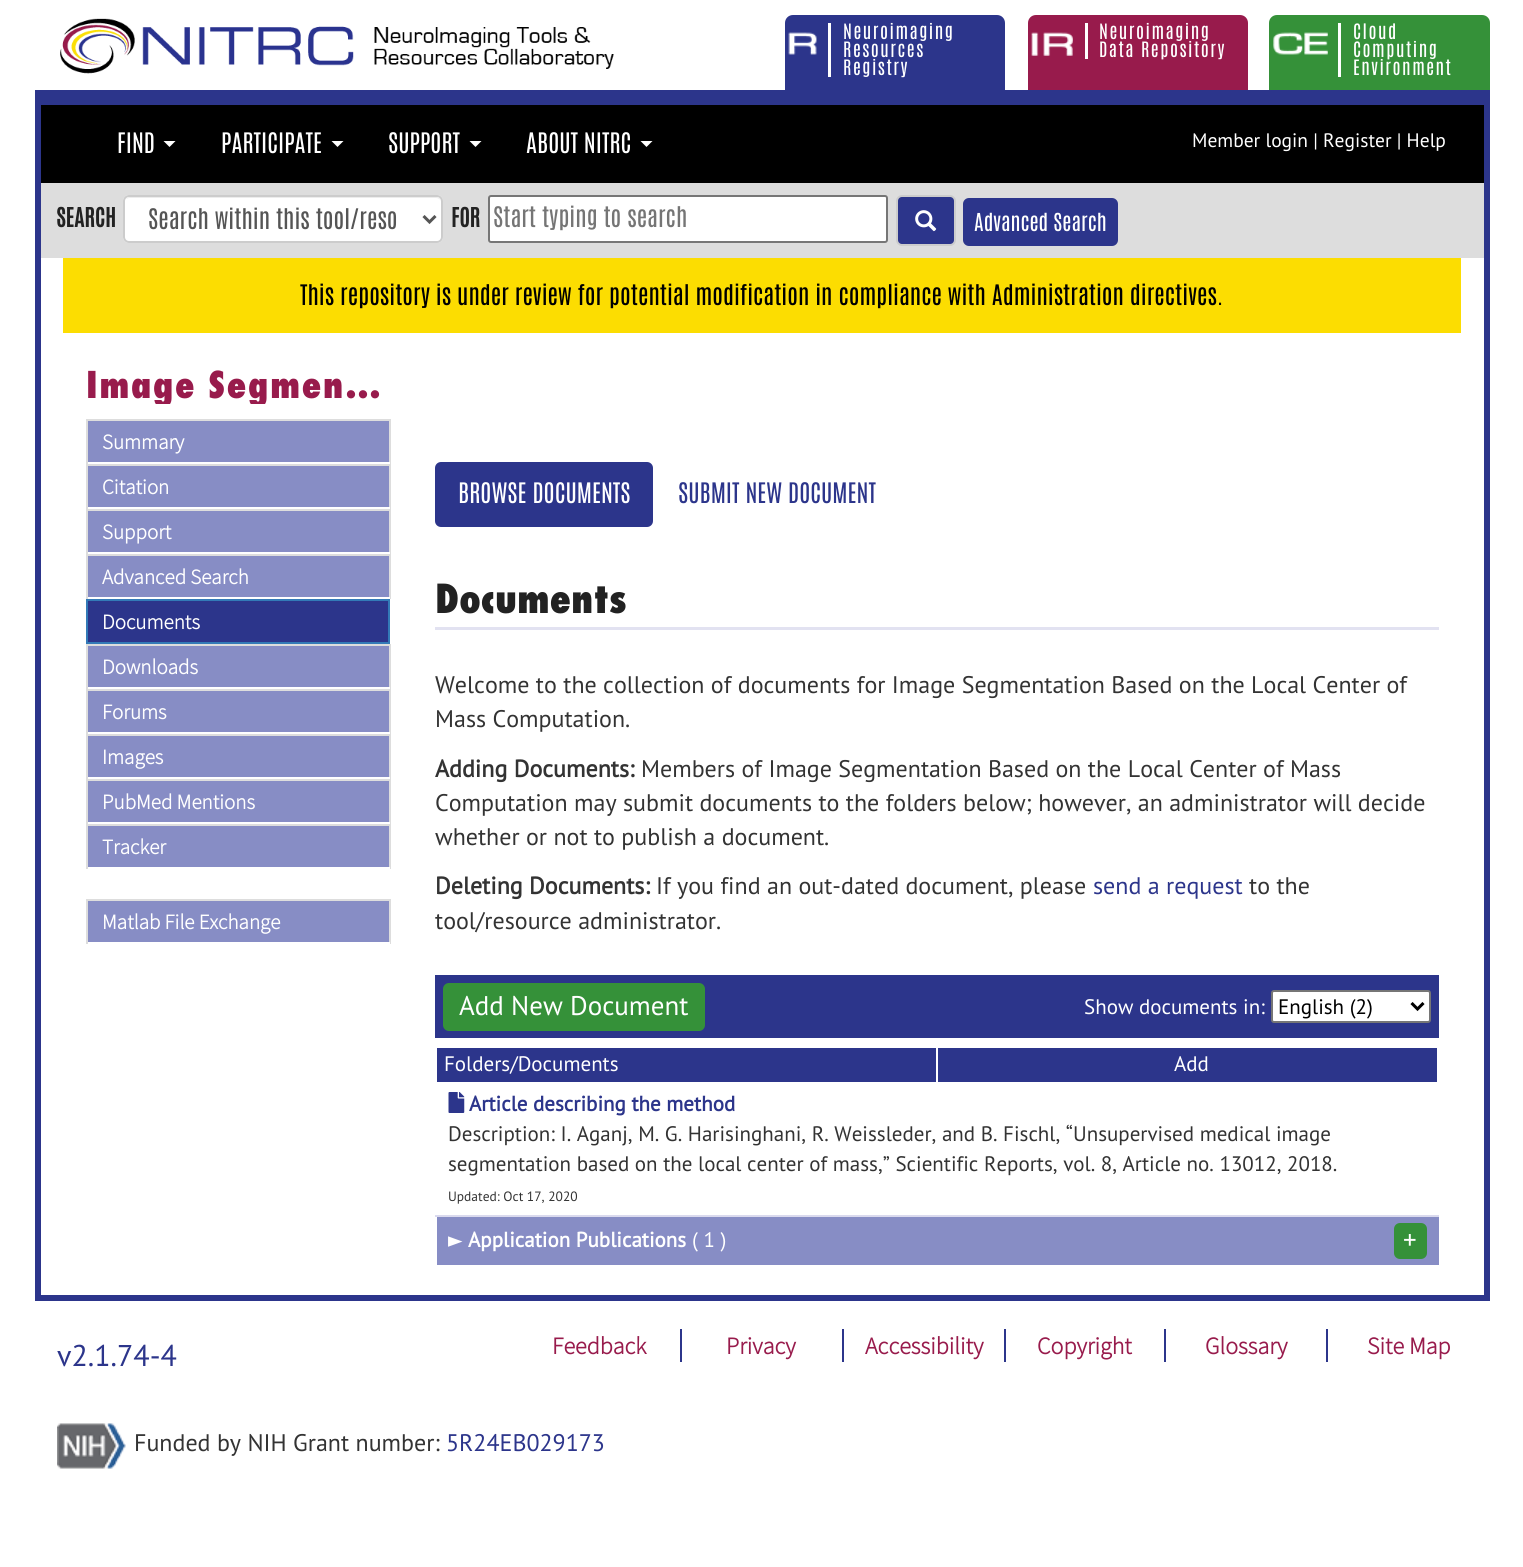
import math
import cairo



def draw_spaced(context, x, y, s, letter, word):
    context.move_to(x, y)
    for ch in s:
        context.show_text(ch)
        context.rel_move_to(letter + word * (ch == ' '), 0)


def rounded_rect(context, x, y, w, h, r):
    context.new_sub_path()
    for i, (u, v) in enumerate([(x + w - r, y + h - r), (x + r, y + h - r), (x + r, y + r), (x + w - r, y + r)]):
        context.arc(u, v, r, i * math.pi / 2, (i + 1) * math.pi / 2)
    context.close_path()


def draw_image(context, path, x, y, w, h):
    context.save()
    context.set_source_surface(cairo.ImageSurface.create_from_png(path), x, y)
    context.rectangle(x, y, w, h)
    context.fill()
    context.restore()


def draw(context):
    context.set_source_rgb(1, 1, 1)
    context.paint()
    draw_image(context, "images/1.png", 60, 18, 294, 56)
    draw_image(context, "images/2.png", 374, 27, 240, 42)
    context.set_source_rgb(44 / 255, 53 / 255, 139 / 255)
    context.new_path()
    context.move_to(793, 15)
    context.line_to(997, 15)
    context.curve_to(1001.5, 15, 1005, 18.5, 1005, 23)
    context.line_to(1005, 90)
    context.line_to(785, 90)
    context.line_to(785, 23)
    context.curve_to(785, 18.5, 788.5, 15, 793, 15)
    context.close_path()
    context.fill()
    draw_image(context, "images/3.png", 788, 32, 29, 23)
    context.set_source_rgb(1, 1, 1)
    context.rectangle(828, 23, 3, 54)
    context.fill()
    context.set_source_rgb(152 / 255, 27 / 255, 76 / 255)
    context.new_path()
    context.move_to(1036, 15)
    context.line_to(1240, 15)
    context.curve_to(1244.5, 15, 1248, 18.5, 1248, 23)
    context.line_to(1248, 90)
    context.line_to(1028, 90)
    context.line_to(1028, 23)
    context.curve_to(1028, 18.5, 1031.5, 15, 1036, 15)
    context.close_path()
    context.fill()
    draw_image(context, "images/4.png", 1031, 32, 42, 24)
    context.set_source_rgb(1, 1, 1)
    context.rectangle(1085, 23, 3, 36)
    context.fill()
    context.set_source_rgb(53 / 255, 145 / 255, 57 / 255)
    context.new_path()
    context.move_to(1277, 15)
    context.line_to(1482, 15)
    context.curve_to(1486.5, 15, 1490, 18.5, 1490, 23)
    context.line_to(1490, 90)
    context.line_to(1269, 90)
    context.line_to(1269, 23)
    context.curve_to(1269, 18.5, 1272.5, 15, 1277, 15)
    context.close_path()
    context.fill()
    draw_image(context, "images/5.png", 1273, 32, 55, 23)
    context.set_source_rgb(1, 1, 1)
    context.rectangle(1338, 23, 3, 54)
    context.fill()
    context.set_source_rgb(44 / 255, 53 / 255, 139 / 255)
    context.rectangle(41, 90, 1443, 15)
    context.fill()
    context.rectangle(1484, 90, 6, 1211)
    context.fill()
    context.rectangle(35, 1295, 1455, 6)
    context.fill()
    context.rectangle(35, 90, 6, 1211)
    context.fill()
    context.set_source_rgb(0, 0, 0)
    context.rectangle(41, 105, 1443, 78)
    context.fill()
    context.set_source_rgb(1, 1, 1)
    context.new_path()
    context.move_to(163.5, 141)
    context.line_to(175.5, 141)
    context.line_to(169.5, 147)
    context.close_path()
    context.fill()
    context.new_path()
    context.move_to(331.5, 141)
    context.line_to(343.5, 141)
    context.line_to(337.5, 147)
    context.close_path()
    context.fill()
    context.new_path()
    context.move_to(469.5, 141)
    context.line_to(481.5, 141)
    context.line_to(475.5, 147)
    context.close_path()
    context.fill()
    context.new_path()
    context.move_to(640.5, 141)
    context.line_to(652.5, 141)
    context.line_to(646.5, 147)
    context.close_path()
    context.fill()
    context.set_source_rgb(221 / 255, 221 / 255, 221 / 255)
    context.rectangle(41, 183, 1443, 75)
    context.fill()
    context.set_source_rgb(1, 1, 1)
    rounded_rect(context, 123, 195, 320, 48, 6)
    context.fill()
    context.set_source_rgb(236 / 255, 236 / 255, 236 / 255)
    context.new_path()
    context.move_to(129, 198)
    context.line_to(436, 198)
    context.curve_to(439, 198, 441, 200, 441, 202)
    context.curve_to(441, 199, 439, 197, 436, 197)
    context.line_to(130, 197)
    context.curve_to(128, 197, 127, 198, 126, 199)
    context.close_path()
    context.fill()
    rounded_rect(context, 124, 196, 318, 46, 5)
    context.set_source_rgb(204 / 255, 204 / 255, 204 / 255)
    context.stroke()
    context.new_path()
    context.move_to(423.5, 216)
    context.line_to(429.5, 222)
    context.line_to(435.5, 216)
    context.set_source_rgb(85 / 255, 85 / 255, 85 / 255)
    context.set_line_width(3)
    context.stroke()
    context.set_source_rgb(1, 1, 1)
    rounded_rect(context, 489, 196, 398, 46, 2)
    context.fill_preserve()
    context.set_source_rgb(118 / 255, 118 / 255, 118 / 255)
    context.set_line_width(2)
    context.stroke()
    context.set_source_rgb(44 / 255, 53 / 255, 139 / 255)
    rounded_rect(context, 897, 196, 58, 49, 5)
    context.fill_preserve()
    context.set_source_rgb(204 / 255, 204 / 255, 204 / 255)
    context.stroke()
    draw_image(context, "images/6.png", 915, 210, 22, 22)
    context.set_source_rgb(44 / 255, 53 / 255, 139 / 255)
    rounded_rect(context, 964, 199, 153, 46, 5)
    context.fill_preserve()
    context.stroke()
    context.set_source_rgb(252 / 255, 221 / 255, 1 / 255)
    context.rectangle(63, 258, 1398, 75)
    context.fill()
    context.set_source_rgb(135 / 255, 141 / 255, 197 / 255)
    context.rectangle(88, 421, 301, 41)
    context.fill()
    context.set_source_rgb(221 / 255, 221 / 255, 221 / 255)
    context.rectangle(86, 419, 304, 2)
    context.fill()
    context.rectangle(389, 419, 2, 45)
    context.fill()
    context.set_source_rgb(1, 1, 1)
    context.rectangle(389, 462, 1, 2)
    context.fill()
    context.set_source_rgb(221 / 255, 221 / 255, 221 / 255)
    context.rectangle(86, 419, 2, 45)
    context.fill()
    context.set_source_rgb(135 / 255, 141 / 255, 197 / 255)
    context.rectangle(88, 466, 301, 41)
    context.fill()
    context.set_source_rgb(221 / 255, 221 / 255, 221 / 255)
    context.rectangle(86, 464, 304, 2)
    context.fill()
    context.rectangle(389, 464, 2, 45)
    context.fill()
    context.set_source_rgb(1, 1, 1)
    context.rectangle(389, 507, 1, 2)
    context.fill()
    context.set_source_rgb(221 / 255, 221 / 255, 221 / 255)
    context.rectangle(86, 464, 2, 45)
    context.fill()
    context.set_source_rgb(135 / 255, 141 / 255, 197 / 255)
    context.rectangle(88, 511, 301, 41)
    context.fill()
    context.set_source_rgb(221 / 255, 221 / 255, 221 / 255)
    context.rectangle(86, 509, 304, 2)
    context.fill()
    context.rectangle(389, 509, 2, 45)
    context.fill()
    context.set_source_rgb(1, 1, 1)
    context.rectangle(389, 552, 1, 2)
    context.fill()
    context.set_source_rgb(221 / 255, 221 / 255, 221 / 255)
    context.rectangle(86, 509, 2, 45)
    context.fill()
    context.set_source_rgb(135 / 255, 141 / 255, 197 / 255)
    context.rectangle(88, 556, 301, 41)
    context.fill()
    context.set_source_rgb(221 / 255, 221 / 255, 221 / 255)
    context.rectangle(86, 554, 304, 2)
    context.fill()
    context.rectangle(389, 554, 2, 45)
    context.fill()
    context.set_source_rgb(1, 1, 1)
    context.rectangle(389, 597, 1, 2)
    context.fill()
    context.set_source_rgb(221 / 255, 221 / 255, 221 / 255)
    context.rectangle(86, 554, 2, 45)
    context.fill()
    context.set_source_rgb(44 / 255, 53 / 255, 139 / 255)
    context.rectangle(87, 600, 302, 43)
    context.fill_preserve()
    context.set_source_rgb(51 / 255, 122 / 255, 183 / 255)
    context.stroke()
    context.set_source_rgb(135 / 255, 141 / 255, 197 / 255)
    context.rectangle(88, 646, 301, 41)
    context.fill()
    context.set_source_rgb(221 / 255, 221 / 255, 221 / 255)
    context.rectangle(86, 644, 304, 2)
    context.fill()
    context.rectangle(389, 644, 2, 45)
    context.fill()
    context.set_source_rgb(1, 1, 1)
    context.rectangle(389, 687, 1, 2)
    context.fill()
    context.set_source_rgb(221 / 255, 221 / 255, 221 / 255)
    context.rectangle(86, 644, 2, 45)
    context.fill()
    context.set_source_rgb(135 / 255, 141 / 255, 197 / 255)
    context.rectangle(88, 691, 301, 41)
    context.fill()
    context.set_source_rgb(221 / 255, 221 / 255, 221 / 255)
    context.rectangle(86, 689, 304, 2)
    context.fill()
    context.rectangle(389, 689, 2, 45)
    context.fill()
    context.set_source_rgb(1, 1, 1)
    context.rectangle(389, 732, 1, 2)
    context.fill()
    context.set_source_rgb(221 / 255, 221 / 255, 221 / 255)
    context.rectangle(86, 689, 2, 45)
    context.fill()
    context.set_source_rgb(135 / 255, 141 / 255, 197 / 255)
    context.rectangle(88, 736, 301, 41)
    context.fill()
    context.set_source_rgb(221 / 255, 221 / 255, 221 / 255)
    context.rectangle(86, 734, 304, 2)
    context.fill()
    context.rectangle(389, 734, 2, 45)
    context.fill()
    context.set_source_rgb(1, 1, 1)
    context.rectangle(389, 777, 1, 2)
    context.fill()
    context.set_source_rgb(221 / 255, 221 / 255, 221 / 255)
    context.rectangle(86, 734, 2, 45)
    context.fill()
    context.set_source_rgb(135 / 255, 141 / 255, 197 / 255)
    context.rectangle(88, 781, 301, 41)
    context.fill()
    context.set_source_rgb(221 / 255, 221 / 255, 221 / 255)
    context.rectangle(86, 779, 304, 2)
    context.fill()
    context.rectangle(389, 779, 2, 45)
    context.fill()
    context.set_source_rgb(1, 1, 1)
    context.rectangle(389, 822, 1, 2)
    context.fill()
    context.set_source_rgb(221 / 255, 221 / 255, 221 / 255)
    context.rectangle(86, 779, 2, 45)
    context.fill()
    context.set_source_rgb(135 / 255, 141 / 255, 197 / 255)
    context.rectangle(88, 826, 301, 41)
    context.fill()
    context.set_source_rgb(221 / 255, 221 / 255, 221 / 255)
    context.rectangle(86, 824, 304, 2)
    context.fill()
    context.rectangle(389, 824, 2, 45)
    context.fill()
    context.set_source_rgb(1, 1, 1)
    context.rectangle(389, 867, 1, 2)
    context.fill()
    context.set_source_rgb(221 / 255, 221 / 255, 221 / 255)
    context.rectangle(86, 824, 2, 45)
    context.fill()
    context.set_source_rgb(135 / 255, 141 / 255, 197 / 255)
    context.rectangle(88, 901, 301, 41)
    context.fill()
    context.set_source_rgb(221 / 255, 221 / 255, 221 / 255)
    context.rectangle(86, 899, 304, 2)
    context.fill()
    context.rectangle(389, 899, 2, 45)
    context.fill()
    context.set_source_rgb(1, 1, 1)
    context.rectangle(389, 942, 1, 2)
    context.fill()
    context.set_source_rgb(221 / 255, 221 / 255, 221 / 255)
    context.rectangle(86, 899, 2, 45)
    context.fill()
    context.set_source_rgb(44 / 255, 53 / 255, 139 / 255)
    rounded_rect(context, 435, 462, 218, 65, 6)
    context.fill()
    context.set_source_rgb(226 / 255, 226 / 255, 241 / 255)
    context.rectangle(435, 627, 1004, 3)
    context.fill()
    context.set_source_rgb(44 / 255, 53 / 255, 139 / 255)
    context.rectangle(435, 975, 1004, 63)
    context.fill()
    context.set_source_rgb(53 / 255, 145 / 255, 57 / 255)
    rounded_rect(context, 444, 984, 260, 46, 5)
    context.fill_preserve()
    context.stroke()
    context.set_source_rgb(1, 1, 1)
    rounded_rect(context, 1272, 991, 158, 31, 2)
    context.fill_preserve()
    context.set_source_rgb(118 / 255, 118 / 255, 118 / 255)
    context.stroke()
    context.new_path()
    context.move_to(1411.5, 1003)
    context.line_to(1417.5, 1009)
    context.line_to(1423.5, 1003)
    context.set_source_rgb(0, 0, 0)
    context.set_line_width(3)
    context.stroke()
    context.set_source_rgb(44 / 255, 53 / 255, 139 / 255)
    context.rectangle(437, 1048, 1000, 34)
    context.fill()
    context.set_source_rgb(1, 1, 1)
    context.rectangle(936, 1046, 2, 37)
    context.fill()
    draw_image(context, "images/7.png", 448, 1092, 17, 21)
    context.set_source_rgb(135 / 255, 141 / 255, 197 / 255)
    context.rectangle(437, 1217, 1002, 48)
    context.fill()
    context.set_source_rgb(218 / 255, 218 / 255, 238 / 255)
    context.rectangle(435, 1215, 1004, 2)
    context.fill()
    context.set_source_rgb(53 / 255, 145 / 255, 57 / 255)
    rounded_rect(context, 1395, 1224, 31, 34, 5)
    context.fill_preserve()
    context.set_line_width(2)
    context.stroke()
    context.set_source_rgb(44 / 255, 53 / 255, 139 / 255)
    context.rectangle(680, 1329, 2, 33)
    context.fill()
    context.rectangle(842, 1329, 2, 33)
    context.fill()
    context.rectangle(1004, 1329, 2, 33)
    context.fill()
    context.rectangle(1164, 1329, 2, 33)
    context.fill()
    context.rectangle(1326, 1329, 2, 33)
    context.fill()
    draw_image(context, "images/8.png", 57, 1423, 69, 46)
    context.select_font_face("Antonio")
    context.set_font_size(18)
    context.set_source_rgb(1, 1, 1)
    draw_spaced(context, 843, 39, "Neuroimaging", 1.5, 0)
    draw_spaced(context, 843, 57, "Resources", 1.5, 0)
    draw_spaced(context, 843, 75, "Registry", 1.5, 0)
    draw_spaced(context, 1099, 39, "Neuroimaging", 1.5, 0)
    draw_spaced(context, 1099, 57, "Data Repository", 1.5, 0)
    draw_spaced(context, 1353, 39, "Cloud", 1.5, 0)
    draw_spaced(context, 1353, 57, "Computing", 1.5, 0)
    draw_spaced(context, 1353, 75, "Environment", 1.5, 0)
    context.set_font_size(24)
    context.move_to(117, 153)
    context.show_text("FIND")
    context.move_to(221, 153)
    context.show_text("PARTICIPATE")
    context.move_to(388, 153)
    context.show_text("SUPPORT")
    context.move_to(526, 153)
    context.show_text("ABOUT NITRC")
    context.select_font_face("PT Sans")
    context.set_font_size(19.5)
    context.move_to(1192, 147)
    context.show_text("Member login | Register | Help")
    context.select_font_face("Antonio", cairo.FontSlant.NORMAL, cairo.FontWeight.BOLD)
    context.set_font_size(22.5)
    context.set_source_rgb(34 / 255, 34 / 255, 34 / 255)
    context.move_to(56, 227)
    context.show_text("SEARCH")
    context.select_font_face("Antonio")
    context.set_font_size(24)
    context.set_source_rgb(85 / 255, 85 / 255, 85 / 255)
    context.move_to(148, 229)
    context.show_text("Search within this tool/reso")
    context.select_font_face("Antonio", cairo.FontSlant.NORMAL, cairo.FontWeight.BOLD)
    context.set_font_size(22.5)
    context.set_source_rgb(34 / 255, 34 / 255, 34 / 255)
    context.move_to(451, 227)
    context.show_text("FOR")
    context.select_font_face("Antonio")
    context.set_font_size(24)
    context.set_source_rgb(117 / 255, 117 / 255, 117 / 255)
    context.move_to(493, 227)
    context.show_text("Start typing to search")
    context.set_font_size(21)
    context.set_source_rgb(1, 1, 1)
    context.move_to(974, 231)
    context.show_text("Advanced Search")
    context.set_font_size(24)
    context.set_source_rgb(0, 0, 0)
    context.move_to(300, 305)
    context.show_text("This repository is under review for potential modification in compliance with Administration directives.")
    context.save()
    context.rectangle(86, 365, 304, 39)
    context.clip()
    context.select_font_face("Futura ExtraBold")
    context.set_font_size(36)
    context.set_source_rgb(152 / 255, 27 / 255, 76 / 255)
    draw_spaced(context, 86, 398, "Image Segmen…", 1.5, 0)
    context.restore()
    context.select_font_face("Source Sans Pro", cairo.FontSlant.NORMAL, cairo.FontWeight.BOLD)
    context.set_font_size(21)
    context.set_source_rgb(1, 1, 1)
    context.move_to(102, 449)
    context.show_text("Summary")
    context.move_to(102, 494)
    context.show_text("Citation")
    context.move_to(102, 539)
    context.show_text("Support")
    context.move_to(102, 584)
    context.show_text("Advanced Search")
    context.move_to(102, 629)
    context.show_text("Documents")
    context.move_to(102, 674)
    context.show_text("Downloads")
    context.move_to(102, 719)
    context.show_text("Forums")
    context.move_to(102, 764)
    context.show_text("Images")
    context.move_to(102, 809)
    context.show_text("PubMed Mentions")
    context.move_to(102, 854)
    context.show_text("Tracker")
    context.move_to(102, 929)
    context.show_text("Matlab File Exchange")
    context.select_font_face("Antonio")
    context.set_font_size(24)
    context.move_to(458, 503)
    context.show_text("BROWSE DOCUMENTS")
    context.set_source_rgb(44 / 255, 53 / 255, 139 / 255)
    context.move_to(678, 503)
    context.show_text("SUBMIT NEW DOCUMENT")
    context.select_font_face("Futura ExtraBold")
    context.set_font_size(39)
    context.set_source_rgb(34 / 255, 34 / 255, 34 / 255)
    context.move_to(435, 613)
    context.show_text("Documents")
    context.select_font_face("PT Sans")
    context.set_font_size(24)
    context.set_source_rgb(51 / 255, 51 / 255, 51 / 255)
    context.move_to(435, 693)
    context.show_text("Welcome to the collection of documents for Image Segmentation Based on the Local Center of")
    context.move_to(435, 727)
    context.show_text("Mass Computation.")
    context.select_font_face("PT Sans", cairo.FontSlant.NORMAL, cairo.FontWeight.BOLD)
    context.move_to(435, 777)
    context.show_text("Adding Documents:")
    context.select_font_face("PT Sans")
    context.move_to(641, 777)
    context.show_text("Members of Image Segmentation Based on the Local Center of Mass")
    context.move_to(435, 811)
    context.show_text("Computation may submit documents to the folders below; however, an administrator will decide")
    context.move_to(435, 845)
    context.show_text("whether or not to publish a document.")
    context.select_font_face("PT Sans", cairo.FontSlant.NORMAL, cairo.FontWeight.BOLD)
    context.move_to(435, 894)
    context.show_text("Deleting Documents:")
    context.select_font_face("PT Sans")
    context.move_to(656, 894)
    context.show_text("If you find an out-dated document, please")
    context.set_source_rgb(44 / 255, 53 / 255, 139 / 255)
    context.move_to(1093, 894)
    context.show_text("send a request")
    context.set_source_rgb(51 / 255, 51 / 255, 51 / 255)
    context.move_to(1249, 894)
    context.show_text("to the")
    context.move_to(435, 929)
    context.show_text("tool/resource administrator.")
    context.set_font_size(27)
    context.set_source_rgb(1, 1, 1)
    context.move_to(459, 1015)
    context.show_text("Add New Document")
    context.set_font_size(21)
    context.move_to(1084, 1014)
    context.show_text("Show documents in:")
    context.set_source_rgb(0, 0, 0)
    context.move_to(1278, 1014)
    context.show_text("English (2)")
    context.set_source_rgb(1, 1, 1)
    context.move_to(444, 1071)
    context.show_text("Folders/Documents")
    context.move_to(1174, 1071)
    context.show_text("Add")
    context.select_font_face("PT Sans", cairo.FontSlant.NORMAL, cairo.FontWeight.BOLD)
    context.set_source_rgb(44 / 255, 53 / 255, 139 / 255)
    context.move_to(469, 1111)
    context.show_text("Article describing the method")
    context.select_font_face("PT Sans")
    context.set_source_rgb(51 / 255, 51 / 255, 51 / 255)
    context.move_to(448, 1141)
    context.show_text("Description: I. Aganj, M. G. Harisinghani, R. Weissleder, and B. Fischl, “Unsupervised medical image")
    context.move_to(448, 1171)
    context.show_text("segmentation based on the local center of mass,” Scientific Reports, vol. 8, Article no. 13012, 2018.")
    context.set_font_size(13.5)
    context.move_to(448, 1201)
    context.show_text("Updated: Oct 17, 2020")
    context.select_font_face("DejaVu Sans")
    context.set_font_size(21)
    context.set_source_rgb(1, 1, 1)
    context.move_to(448, 1247)
    context.show_text("►")
    context.select_font_face("PT Sans", cairo.FontSlant.NORMAL, cairo.FontWeight.BOLD)
    context.move_to(468, 1247)
    context.show_text("Application Publications")
    context.select_font_face("PT Sans")
    context.move_to(692, 1247)
    context.show_text("( 1 )")
    context.set_font_size(27)
    context.move_to(1403, 1249)
    context.show_text("+")
    context.set_font_size(30)
    context.set_source_rgb(44 / 255, 53 / 255, 139 / 255)
    context.move_to(57, 1366)
    context.show_text("v2.1.74-4")
    context.select_font_face("Source Sans Pro", cairo.FontSlant.NORMAL, cairo.FontWeight.BOLD)
    context.set_font_size(24)
    context.set_source_rgb(152 / 255, 27 / 255, 76 / 255)
    context.move_to(552, 1354)
    context.show_text("Feedback")
    context.move_to(726, 1354)
    context.show_text("Privacy")
    context.move_to(865, 1354)
    context.show_text("Accessibility")
    context.move_to(1037, 1354)
    context.show_text("Copyright")
    context.move_to(1205, 1354)
    context.show_text("Glossary")
    context.move_to(1367, 1354)
    context.show_text("Site Map")
    context.select_font_face("PT Sans")
    context.set_source_rgb(51 / 255, 51 / 255, 51 / 255)
    context.move_to(134, 1451)
    context.show_text("Funded by NIH Grant number:")
    context.set_source_rgb(44 / 255, 53 / 255, 139 / 255)
    context.move_to(446, 1451)
    context.show_text("5R24EB029173")


surface = cairo.ImageSurface(cairo.Format.RGB24, 1523, 1567)
context = cairo.Context(surface)
options = cairo.FontOptions()
options.set_hint_metrics(cairo.HintMetrics.OFF)
options.set_hint_style(cairo.HintStyle.NONE)
context.set_font_options(options)
context.set_miter_limit(4)
draw(context)
surface.write_to_png("out.png")
